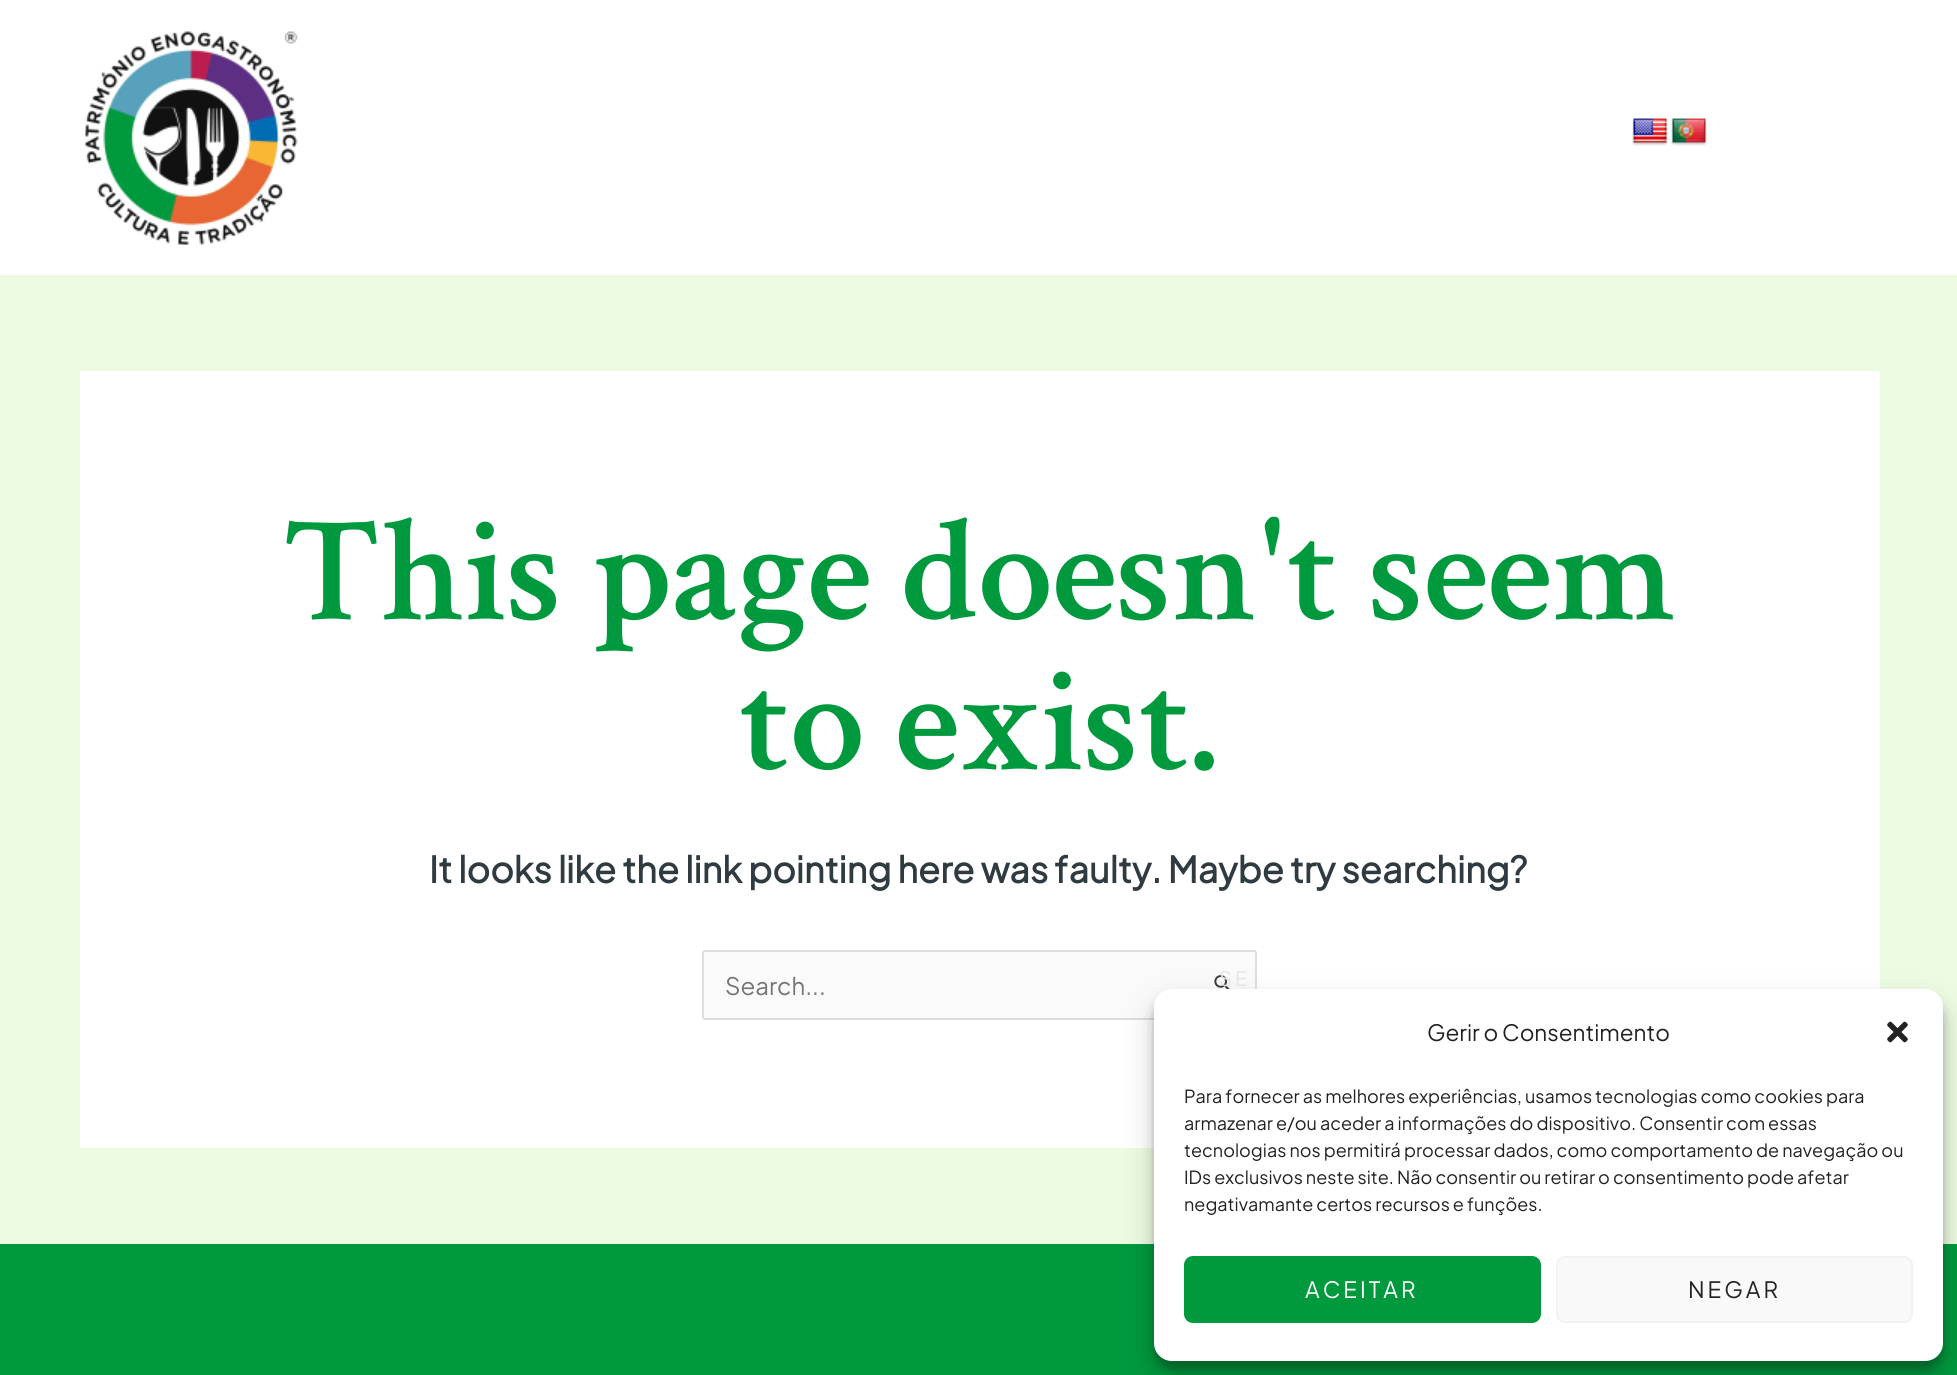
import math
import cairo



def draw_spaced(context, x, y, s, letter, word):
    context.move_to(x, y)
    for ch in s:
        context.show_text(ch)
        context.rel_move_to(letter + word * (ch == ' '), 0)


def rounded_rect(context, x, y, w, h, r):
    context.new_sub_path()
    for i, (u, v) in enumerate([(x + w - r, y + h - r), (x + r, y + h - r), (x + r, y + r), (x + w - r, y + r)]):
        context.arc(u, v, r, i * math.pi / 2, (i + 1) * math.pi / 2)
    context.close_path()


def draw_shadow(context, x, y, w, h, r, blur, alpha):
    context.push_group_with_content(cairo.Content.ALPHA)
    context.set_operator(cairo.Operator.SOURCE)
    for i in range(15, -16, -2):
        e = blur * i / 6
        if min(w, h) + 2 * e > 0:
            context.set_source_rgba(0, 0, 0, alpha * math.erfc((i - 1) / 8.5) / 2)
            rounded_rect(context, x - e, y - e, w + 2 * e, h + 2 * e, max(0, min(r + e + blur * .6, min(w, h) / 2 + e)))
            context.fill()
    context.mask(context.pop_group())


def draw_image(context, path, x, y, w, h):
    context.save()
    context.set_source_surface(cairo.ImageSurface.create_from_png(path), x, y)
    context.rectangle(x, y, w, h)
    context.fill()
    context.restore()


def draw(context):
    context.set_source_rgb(237 / 255, 251 / 255, 226 / 255)
    context.paint()
    context.set_source_rgb(1, 1, 1)
    context.rectangle(0, 0, 1957, 275)
    context.fill()
    draw_image(context, "images/1.png", 85, 31, 213, 214)
    draw_image(context, "images/2.png", 1632, 118, 36, 28)
    draw_image(context, "images/3.png", 1671, 118, 36, 28)
    context.rectangle(80, 371, 1800, 777)
    context.fill()
    context.set_source_rgb(250 / 255, 250 / 255, 250 / 255)
    rounded_rect(context, 703, 951, 553, 68, 2)
    context.fill_preserve()
    context.set_source_rgb(221 / 255, 221 / 255, 221 / 255)
    context.stroke()
    draw_image(context, "images/4.png", 1214, 975, 16, 14)
    context.set_source_rgb(0, 153 / 255, 62 / 255)
    context.rectangle(0, 1244, 1957, 131)
    context.fill()
    context.set_source_rgb(0, 0, 0)
    draw_shadow(context, 1154, 998, 789, 372, 18, 4.5, 0.23)
    draw_shadow(context, 1154, 1004, 789, 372, 18, 15, 0.19)
    context.set_source_rgb(1, 1, 1)
    rounded_rect(context, 1154, 989, 789, 372, 18)
    context.fill()
    draw_image(context, "images/5.png", 1887, 1021, 21, 22)
    context.set_source_rgb(0, 153 / 255, 62 / 255)
    rounded_rect(context, 1185, 1257, 355, 65, 8)
    context.fill_preserve()
    context.stroke()
    context.set_source_rgb(249 / 255, 249 / 255, 249 / 255)
    rounded_rect(context, 1557, 1257, 355, 65, 8)
    context.fill_preserve()
    context.set_source_rgb(242 / 255, 242 / 255, 242 / 255)
    context.stroke()
    context.select_font_face("Crimson Text SemiBold")
    context.set_font_size(150)
    context.set_source_rgb(0, 153 / 255, 62 / 255)
    context.move_to(283, 619)
    context.show_text("This page doesn't seem")
    context.move_to(739, 769)
    context.show_text("to exist.")
    context.select_font_face("Plus Jakarta Sans", cairo.FontSlant.NORMAL, cairo.FontWeight.BOLD)
    context.set_font_size(36)
    context.set_source_rgb(47 / 255, 59 / 255, 64 / 255)
    context.move_to(429, 883)
    context.show_text("It looks like the link pointing here was faulty. Maybe try searching?")
    context.select_font_face("Plus Jakarta Sans")
    context.set_font_size(24)
    context.set_source_rgb(117 / 255, 117 / 255, 117 / 255)
    context.move_to(725, 995)
    context.show_text("Search...")
    context.set_font_size(20)
    context.set_source_rgb(229 / 255, 229 / 255, 229 / 255)
    draw_spaced(context, 1219, 986, "SE", 3, 0)
    context.set_font_size(22.5)
    context.set_source_rgb(34 / 255, 34 / 255, 34 / 255)
    context.move_to(1427, 1041)
    context.show_text("Gerir o Consentimento")
    context.set_font_size(18)
    context.move_to(1184, 1103)
    context.show_text("Para fornecer as melhores experiências, usamos tecnologias como cookies para")
    context.move_to(1184, 1130)
    context.show_text("armazenar e/ou aceder a informações do dispositivo. Consentir com essas")
    context.move_to(1184, 1157)
    context.show_text("tecnologias nos permitirá processar dados, como comportamento de navegação ou")
    context.move_to(1184, 1184)
    context.show_text("IDs exclusivos neste site. Não consentir ou retirar o consentimento pode afetar")
    context.move_to(1184, 1211)
    context.show_text("negativamante certos recursos e funções.")
    context.set_font_size(22.5)
    context.set_source_rgb(1, 1, 1)
    draw_spaced(context, 1305, 1298, "ACEITAR", 3, 0)
    context.set_source_rgb(34 / 255, 34 / 255, 34 / 255)
    draw_spaced(context, 1688, 1298, "NEGAR", 3, 0)


surface = cairo.ImageSurface(cairo.Format.RGB24, 1957, 1375)
context = cairo.Context(surface)
options = cairo.FontOptions()
options.set_hint_metrics(cairo.HintMetrics.OFF)
options.set_hint_style(cairo.HintStyle.NONE)
context.set_font_options(options)
context.set_miter_limit(4)
draw(context)
surface.write_to_png("out.png")
